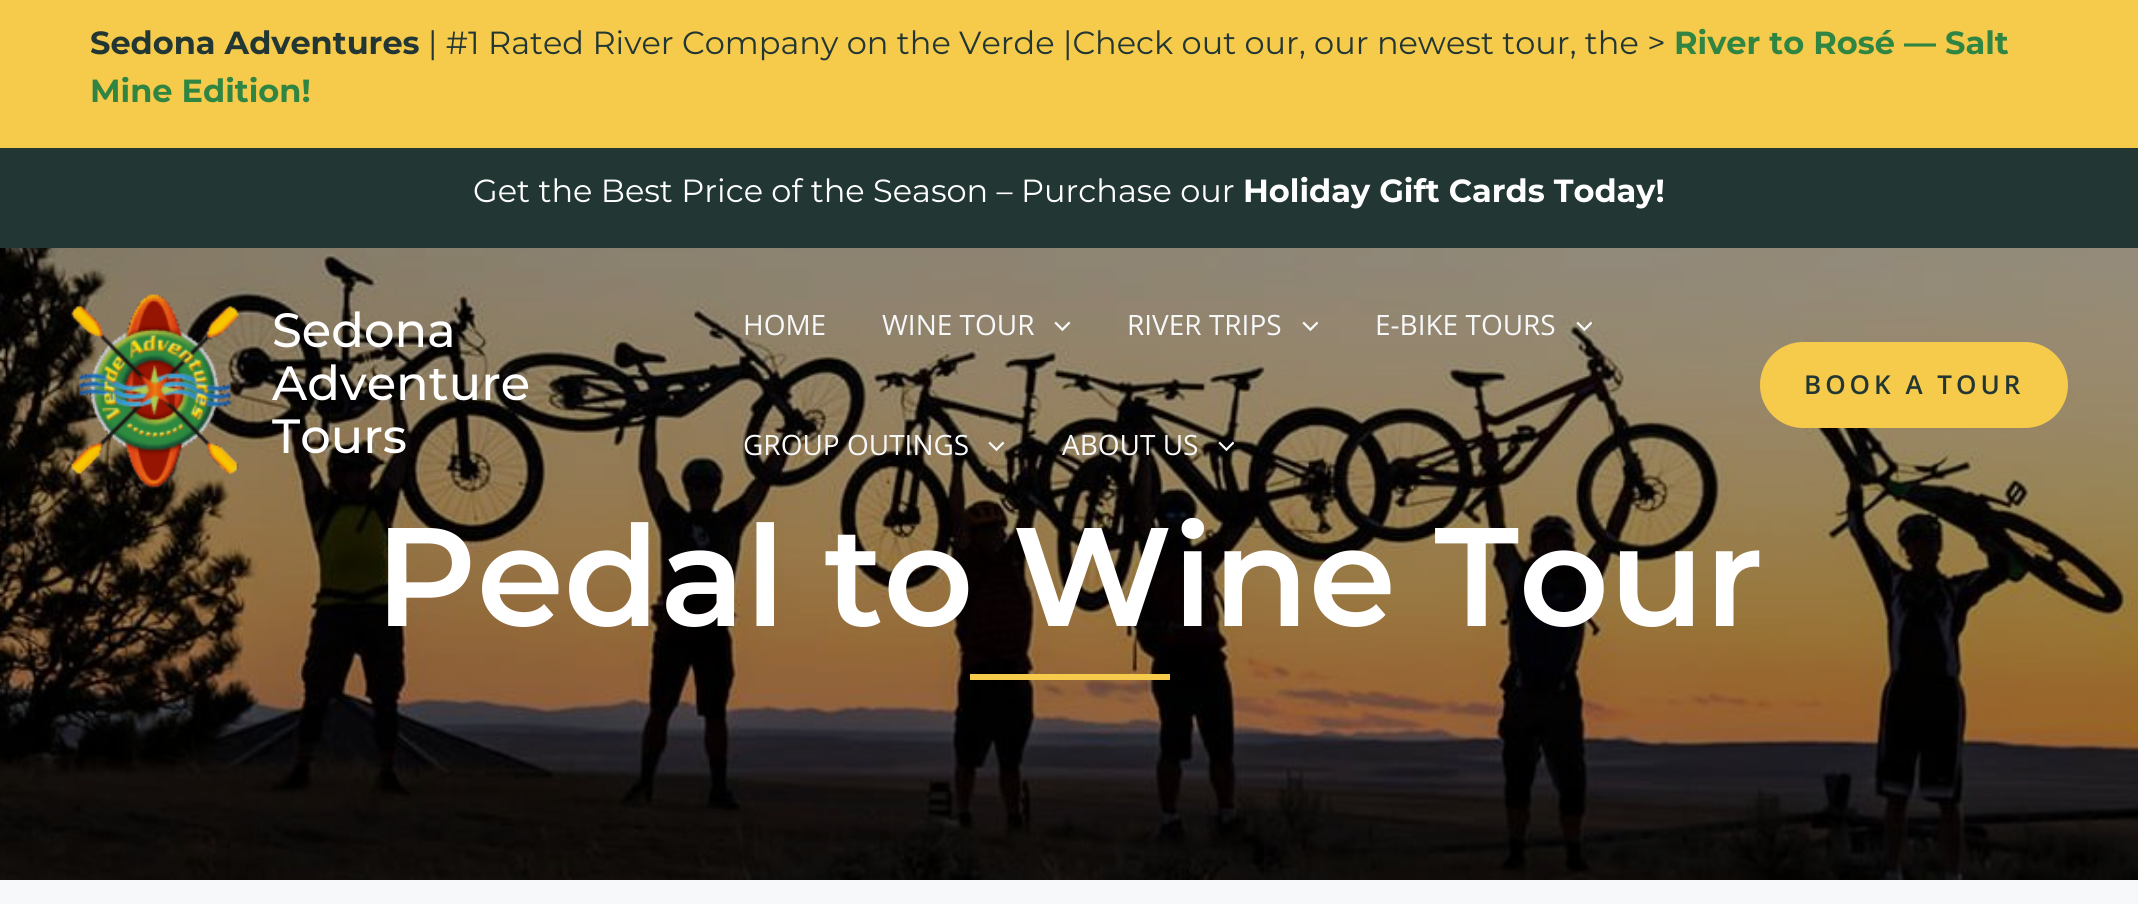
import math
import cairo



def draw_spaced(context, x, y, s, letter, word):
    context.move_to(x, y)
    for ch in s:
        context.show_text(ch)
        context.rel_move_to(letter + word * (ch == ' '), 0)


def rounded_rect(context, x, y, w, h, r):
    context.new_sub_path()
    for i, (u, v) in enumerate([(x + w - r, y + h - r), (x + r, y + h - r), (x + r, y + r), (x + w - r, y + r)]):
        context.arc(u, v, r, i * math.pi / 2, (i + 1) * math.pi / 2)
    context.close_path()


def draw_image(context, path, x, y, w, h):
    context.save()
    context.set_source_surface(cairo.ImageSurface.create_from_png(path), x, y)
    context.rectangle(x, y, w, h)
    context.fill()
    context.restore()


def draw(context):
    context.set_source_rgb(247 / 255, 248 / 255, 249 / 255)
    context.paint()
    context.set_source_rgb(246 / 255, 202 / 255, 75 / 255)
    context.rectangle(0, 0, 2138, 148)
    context.fill()
    context.set_source_rgb(34 / 255, 54 / 255, 51 / 255)
    context.rectangle(0, 148, 2138, 100)
    context.fill()
    draw_image(context, "images/7.png", 0, 248, 2138, 632)
    draw_image(context, "images/1.png", 70, 294, 169, 195)
    draw_image(context, "images/2.png", 1054, 321, 17, 11)
    draw_image(context, "images/3.png", 1302, 321, 16, 11)
    draw_image(context, "images/4.png", 1576, 321, 16, 11)
    draw_image(context, "images/5.png", 988, 441, 17, 11)
    draw_image(context, "images/6.png", 1218, 441, 16, 11)
    context.set_source_rgb(246 / 255, 202 / 255, 75 / 255)
    rounded_rect(context, 1760, 342, 308, 86, 43)
    context.fill()
    context.rectangle(970, 674, 200, 6)
    context.fill()
    context.select_font_face("Montserrat", cairo.FontSlant.NORMAL, cairo.FontWeight.BOLD)
    context.set_font_size(32)
    context.set_source_rgb(34 / 255, 54 / 255, 51 / 255)
    context.move_to(90, 54)
    context.show_text("Sedona Adventures")
    context.select_font_face("Montserrat")
    context.move_to(428, 54)
    context.show_text("| #1 Rated River Company on the Verde |Check out our, our newest tour, the >")
    context.select_font_face("Montserrat", cairo.FontSlant.NORMAL, cairo.FontWeight.BOLD)
    context.set_source_rgb(49 / 255, 133 / 255, 66 / 255)
    context.move_to(1674, 54)
    context.show_text("River to Rosé — Salt")
    context.move_to(90, 102)
    context.show_text("Mine Edition!")
    context.select_font_face("Montserrat")
    context.set_source_rgb(1, 1, 1)
    context.move_to(473, 202)
    context.show_text("Get the Best Price of the Season – Purchase our")
    context.select_font_face("Montserrat", cairo.FontSlant.NORMAL, cairo.FontWeight.BOLD)
    context.move_to(1243, 202)
    context.show_text("Holiday Gift Cards Today!")
    context.select_font_face("Montserrat Medium")
    context.set_font_size(48)
    context.move_to(272, 347)
    context.show_text("Sedona")
    context.move_to(272, 400)
    context.show_text("Adventure")
    context.move_to(272, 453)
    context.show_text("Tours")
    context.select_font_face("Open Sans")
    context.set_font_size(28)
    context.set_source_rgb(247 / 255, 248 / 255, 249 / 255)
    context.move_to(743, 335)
    context.show_text("HOME")
    context.move_to(882, 335)
    context.show_text("WINE TOUR")
    context.move_to(1127, 335)
    context.show_text("RIVER TRIPS")
    context.move_to(1375, 335)
    context.show_text("E-BIKE TOURS")
    context.move_to(743, 455)
    context.show_text("GROUP OUTINGS")
    context.move_to(1062, 455)
    context.show_text("ABOUT US")
    context.select_font_face("Open Sans SemiBold")
    context.set_font_size(26)
    context.set_source_rgb(34 / 255, 54 / 255, 51 / 255)
    draw_spaced(context, 1804, 394, "BOOK A TOUR", 4, 0)
    context.select_font_face("Montserrat SemiBold")
    context.set_font_size(140)
    context.set_source_rgb(1, 1, 1)
    context.move_to(375, 626)
    context.show_text("Pedal to Wine Tour")


surface = cairo.ImageSurface(cairo.Format.RGB24, 2138, 904)
context = cairo.Context(surface)
options = cairo.FontOptions()
options.set_hint_metrics(cairo.HintMetrics.OFF)
options.set_hint_style(cairo.HintStyle.NONE)
context.set_font_options(options)
context.set_miter_limit(4)
draw(context)
surface.write_to_png("out.png")
